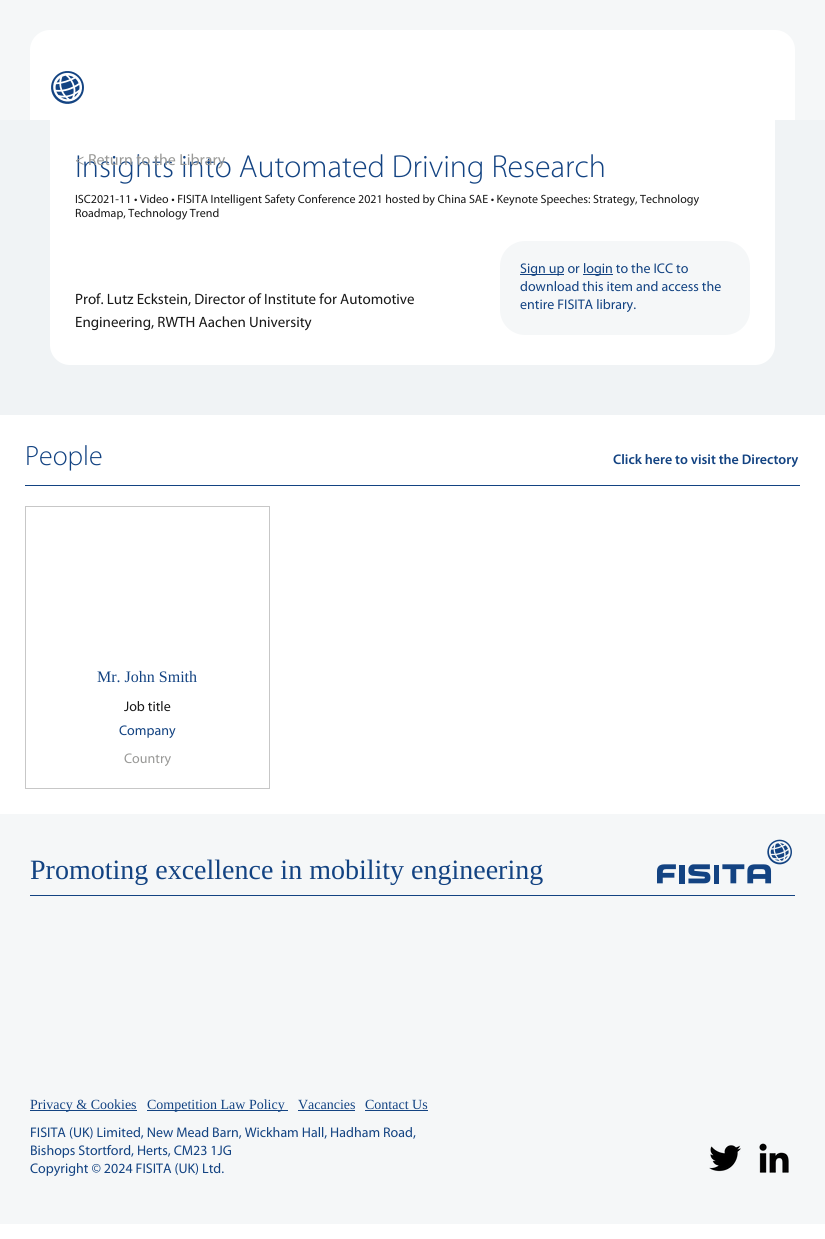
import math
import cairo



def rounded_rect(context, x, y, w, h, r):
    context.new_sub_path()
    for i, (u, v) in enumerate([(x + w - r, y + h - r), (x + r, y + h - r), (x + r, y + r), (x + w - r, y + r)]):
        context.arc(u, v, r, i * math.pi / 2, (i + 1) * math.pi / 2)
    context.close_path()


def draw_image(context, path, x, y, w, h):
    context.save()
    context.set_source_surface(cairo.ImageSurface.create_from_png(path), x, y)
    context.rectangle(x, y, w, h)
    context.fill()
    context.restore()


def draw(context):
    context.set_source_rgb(1, 1, 1)
    context.paint()
    context.set_source_rgb(245 / 255, 247 / 255, 248 / 255)
    context.rectangle(0, 0, 825, 120)
    context.fill()
    context.set_source_rgb(1, 1, 1)
    context.new_path()
    context.move_to(50, 30)
    context.line_to(775, 30)
    context.curve_to(786, 30, 795, 39, 795, 50)
    context.line_to(795, 120)
    context.line_to(30, 120)
    context.line_to(30, 50)
    context.curve_to(30, 39, 39, 30, 50, 30)
    context.close_path()
    context.fill()
    draw_image(context, "images/1.png", 51, 71, 33, 33)
    context.set_source_rgb(240 / 255, 243 / 255, 245 / 255)
    context.rectangle(0, 120, 825, 295)
    context.fill()
    context.set_source_rgb(1, 1, 1)
    context.new_path()
    context.move_to(50, 120)
    context.line_to(775, 120)
    context.line_to(775, 345)
    context.curve_to(775, 356, 766, 365, 755, 365)
    context.line_to(70, 365)
    context.curve_to(59, 365, 50, 356, 50, 345)
    context.close_path()
    context.fill()
    context.set_source_rgb(245 / 255, 247 / 255, 248 / 255)
    rounded_rect(context, 500, 241, 250, 94, 25)
    context.fill()
    context.set_source_rgb(19 / 255, 67 / 255, 130 / 255)
    context.rectangle(520, 274, 44, 1)
    context.fill()
    context.rectangle(583, 274, 30, 1)
    context.fill()
    context.rectangle(25, 485, 775, 1)
    context.fill()
    context.rectangle(25.5, 506.5, 244, 282)
    context.set_source_rgb(199 / 255, 199 / 255, 199 / 255)
    context.set_line_width(1)
    context.stroke()
    context.set_source_rgb(245 / 255, 247 / 255, 248 / 255)
    context.rectangle(0, 814, 825, 410)
    context.fill()
    draw_image(context, "images/2.png", 657, 839, 135, 45)
    context.set_source_rgb(19 / 255, 67 / 255, 130 / 255)
    context.rectangle(30, 895, 765, 1)
    context.fill()
    context.rectangle(30, 1110, 107, 1)
    context.fill()
    context.rectangle(147, 1110, 141, 1)
    context.fill()
    context.rectangle(298, 1110, 57, 1)
    context.fill()
    context.rectangle(365, 1110, 63, 1)
    context.fill()
    draw_image(context, "images/3.png", 709, 1145, 32, 27)
    draw_image(context, "images/4.png", 759, 1143, 30, 30)
    context.select_font_face("Myriad Light")
    context.set_font_size(32)
    context.move_to(75, 177)
    context.show_text("Insights into Automated Driving Research")
    context.select_font_face("Myriad")
    context.set_font_size(16)
    context.set_source_rgb(153 / 255, 153 / 255, 151 / 255)
    context.move_to(75, 165)
    context.show_text("< Return to the Library")
    context.set_font_size(12)
    context.set_source_rgb(24 / 255, 24 / 255, 24 / 255)
    context.move_to(75, 203)
    context.show_text("ISC2021-11 • Video • FISITA Intelligent Safety Conference 2021 hosted by China SAE • Keynote Speeches: Strategy, Technology")
    context.move_to(75, 217)
    context.show_text("Roadmap, Technology Trend")
    context.set_font_size(15)
    context.move_to(75, 304)
    context.show_text("Prof. Lutz Eckstein, Director of Institute for Automotive")
    context.move_to(75, 327)
    context.show_text("Engineering, RWTH Aachen University")
    context.set_font_size(14)
    context.set_source_rgb(19 / 255, 67 / 255, 130 / 255)
    context.move_to(520, 273)
    context.show_text("Sign up or")
    context.move_to(583, 273)
    context.show_text("login to the ICC to")
    context.move_to(520, 291)
    context.show_text("download this item and access the")
    context.move_to(520, 309)
    context.show_text("entire FISITA library.")
    context.select_font_face("Myriad Light")
    context.set_font_size(28)
    context.move_to(25, 465)
    context.show_text("People")
    context.select_font_face("Myriad SemiBold")
    context.set_font_size(14)
    context.move_to(613, 464)
    context.show_text("Click here to visit the Directory")
    context.select_font_face("Liberation Serif")
    context.set_font_size(16)
    context.move_to(97, 682)
    context.show_text("Mr. John Smith")
    context.select_font_face("Myriad")
    context.set_font_size(14)
    context.set_source_rgb(24 / 255, 24 / 255, 24 / 255)
    context.move_to(124, 711)
    context.show_text("Job title")
    context.set_source_rgb(19 / 255, 67 / 255, 130 / 255)
    context.move_to(119, 735)
    context.show_text("Company")
    context.set_source_rgb(153 / 255, 153 / 255, 151 / 255)
    context.move_to(124, 763)
    context.show_text("Country")
    context.select_font_face("Liberation Serif")
    context.set_font_size(28)
    context.set_source_rgb(19 / 255, 67 / 255, 130 / 255)
    context.move_to(30, 879)
    context.show_text("Promoting excellence in mobility engineering")
    context.set_font_size(14)
    context.move_to(30, 1109)
    context.show_text("Privacy & Cookies")
    context.move_to(147, 1109)
    context.show_text("Competition Law Policy")
    context.move_to(298, 1109)
    context.show_text("Vacancies")
    context.move_to(365, 1109)
    context.show_text("Contact Us")
    context.select_font_face("Myriad")
    context.move_to(30, 1137)
    context.show_text("FISITA (UK) Limited, New Mead Barn, Wickham Hall, Hadham Road,")
    context.move_to(30, 1155)
    context.show_text("Bishops Stortford, Herts, CM23 1JG")
    context.move_to(30, 1173)
    context.show_text("Copyright © 2024 FISITA (UK) Ltd.")


surface = cairo.ImageSurface(cairo.Format.RGB24, 825, 1239)
context = cairo.Context(surface)
options = cairo.FontOptions()
options.set_hint_metrics(cairo.HintMetrics.OFF)
options.set_hint_style(cairo.HintStyle.NONE)
context.set_font_options(options)
context.set_miter_limit(4)
draw(context)
surface.write_to_png("out.png")
